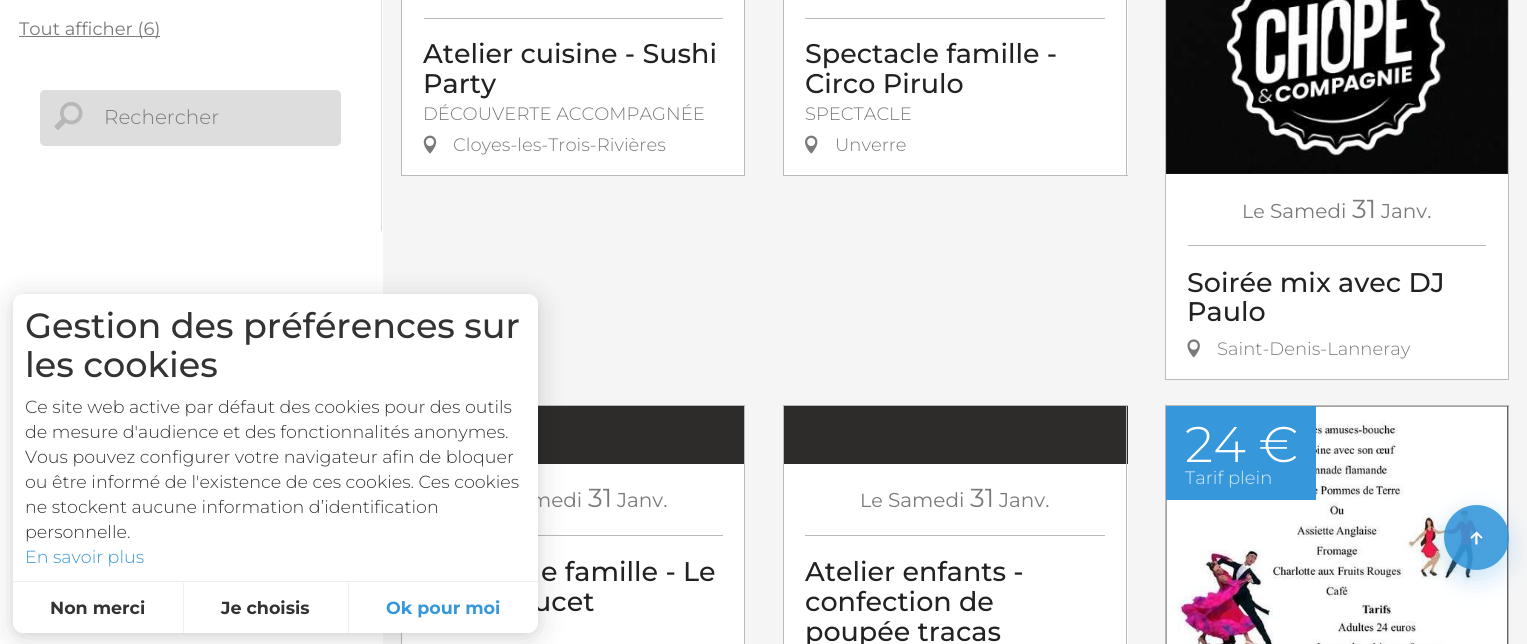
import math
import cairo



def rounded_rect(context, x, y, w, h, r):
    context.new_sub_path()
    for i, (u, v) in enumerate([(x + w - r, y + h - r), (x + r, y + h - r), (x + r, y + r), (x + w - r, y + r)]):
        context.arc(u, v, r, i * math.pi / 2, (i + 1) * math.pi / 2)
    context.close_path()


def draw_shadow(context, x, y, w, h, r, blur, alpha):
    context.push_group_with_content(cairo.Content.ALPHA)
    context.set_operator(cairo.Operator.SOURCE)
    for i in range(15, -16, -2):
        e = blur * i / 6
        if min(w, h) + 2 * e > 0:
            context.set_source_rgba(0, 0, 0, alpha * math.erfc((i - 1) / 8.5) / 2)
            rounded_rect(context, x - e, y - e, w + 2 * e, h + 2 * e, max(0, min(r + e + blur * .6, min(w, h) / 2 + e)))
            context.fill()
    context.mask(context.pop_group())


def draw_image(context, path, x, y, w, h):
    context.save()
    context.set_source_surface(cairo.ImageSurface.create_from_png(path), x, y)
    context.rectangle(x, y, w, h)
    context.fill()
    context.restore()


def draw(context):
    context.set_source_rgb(1, 1, 1)
    context.paint()
    context.set_source_rgb(221 / 255, 221 / 255, 221 / 255)
    context.rectangle(381, 0, 1, 231)
    context.fill()
    context.set_source_rgb(122 / 255, 122 / 255, 122 / 255)
    context.rectangle(19, 36, 141, 1)
    context.fill()
    context.set_source_rgb(221 / 255, 221 / 255, 221 / 255)
    rounded_rect(context, 40, 90, 301, 56, 5)
    context.fill()
    draw_image(context, "images/1.png", 54, 102, 29, 28)
    context.set_source_rgb(245 / 255, 245 / 255, 245 / 255)
    context.rectangle(383, 0, 1144, 644)
    context.fill()
    context.set_source_rgb(1, 1, 1)
    context.rectangle(402, 0, 342, 175)
    context.fill()
    context.set_source_rgb(186 / 255, 186 / 255, 186 / 255)
    context.rectangle(744, 0, 1, 176)
    context.fill()
    context.rectangle(401, 175, 344, 1)
    context.fill()
    context.rectangle(401, 0, 1, 176)
    context.fill()
    context.rectangle(424, 18, 299, 1)
    context.fill()
    draw_image(context, "images/2.png", 423, 135, 14, 19)
    context.set_source_rgb(1, 1, 1)
    context.rectangle(784, 0, 344, 175)
    context.fill()
    context.set_source_rgb(186 / 255, 186 / 255, 186 / 255)
    context.rectangle(1126, 0, 1, 176)
    context.fill()
    context.rectangle(783, 175, 345, 1)
    context.fill()
    context.rectangle(783, 0, 1, 176)
    context.fill()
    context.rectangle(805, 18, 300, 1)
    context.fill()
    draw_image(context, "images/3.png", 805, 135, 13, 19)
    context.set_source_rgb(46 / 255, 43 / 255, 43 / 255)
    context.rectangle(1166, 0, 342, 174)
    context.fill()
    context.set_source_rgb(186 / 255, 186 / 255, 186 / 255)
    context.rectangle(1508, 0, 1, 380)
    context.fill()
    context.rectangle(1165, 0, 1, 174)
    context.fill()
    draw_image(context, "images/4.png", 1166, 0, 342, 174)
    context.set_source_rgb(1, 1, 1)
    context.rectangle(1166, 174, 342, 205)
    context.fill()
    context.set_source_rgb(186 / 255, 186 / 255, 186 / 255)
    context.rectangle(1165, 379, 344, 1)
    context.fill()
    context.rectangle(1165, 174, 1, 206)
    context.fill()
    context.rectangle(1188, 245, 298, 1)
    context.fill()
    draw_image(context, "images/5.png", 1187, 339, 13, 19)
    context.set_source_rgb(46 / 255, 43 / 255, 43 / 255)
    context.rectangle(1166, 406, 342, 238)
    context.fill()
    context.set_source_rgb(186 / 255, 186 / 255, 186 / 255)
    context.rectangle(1165, 405, 344, 1)
    context.fill()
    context.rectangle(1508, 405, 1, 239)
    context.fill()
    context.rectangle(1165, 405, 1, 239)
    context.fill()
    draw_image(context, "images/6.png", 1166, 406, 342, 238)
    context.set_source_rgb(54 / 255, 151 / 255, 219 / 255)
    context.rectangle(1166, 406, 150, 94)
    context.fill()
    context.set_source_rgb(46 / 255, 43 / 255, 43 / 255)
    context.rectangle(538, 406, 206, 58)
    context.fill()
    context.set_source_rgb(186 / 255, 186 / 255, 186 / 255)
    context.rectangle(538, 405, 207, 1)
    context.fill()
    context.rectangle(744, 405, 1, 239)
    context.fill()
    context.set_source_rgb(1, 1, 1)
    context.rectangle(402, 464, 342, 180)
    context.fill()
    context.set_source_rgb(186 / 255, 186 / 255, 186 / 255)
    context.rectangle(401, 633, 1, 11)
    context.fill()
    context.rectangle(538, 535, 185, 1)
    context.fill()
    context.set_source_rgb(46 / 255, 43 / 255, 43 / 255)
    context.rectangle(784, 406, 344, 58)
    context.fill()
    context.set_source_rgb(186 / 255, 186 / 255, 186 / 255)
    context.rectangle(783, 405, 345, 1)
    context.fill()
    context.rectangle(1126, 405, 1, 59)
    context.fill()
    context.rectangle(783, 405, 1, 239)
    context.fill()
    context.set_source_rgb(1, 1, 1)
    context.rectangle(784, 464, 344, 180)
    context.fill()
    context.set_source_rgb(186 / 255, 186 / 255, 186 / 255)
    context.rectangle(1126, 464, 1, 180)
    context.fill()
    context.rectangle(805, 535, 300, 1)
    context.fill()
    context.save()
    context.set_fill_rule(cairo.FillRule.EVEN_ODD)
    context.new_path()
    context.move_to(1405, 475)
    context.line_to(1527, 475)
    context.line_to(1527, 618)
    context.line_to(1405, 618)
    context.close_path()
    context.move_to(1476.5, 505)
    context.curve_to(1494.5, 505, 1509, 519.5, 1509, 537.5)
    context.curve_to(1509, 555.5, 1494.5, 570, 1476.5, 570)
    context.curve_to(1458.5, 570, 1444, 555.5, 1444, 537.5)
    context.curve_to(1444, 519.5, 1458.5, 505, 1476.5, 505)
    context.close_path()
    context.clip()
    context.set_source_rgb(54 / 255, 151 / 255, 219 / 255)
    draw_shadow(context, 1444, 514, 65, 65, 32.5, 12.5, 0.25)
    context.restore()
    context.set_source_rgba(54 / 255, 151 / 255, 219 / 255, 0.9)
    context.arc(1476.5, 537.5, 32.5, 0, 2 * math.pi)
    context.fill()
    draw_image(context, "images/7.png", 1470, 531, 13, 14)
    context.set_source_rgb(0, 0, 0)
    draw_shadow(context, 13, 296, 525, 339, 10, 4, 0.05)
    draw_shadow(context, 13, 299, 525, 339, 10, 15, 0.15)
    context.select_font_face("Montserrat Thin")
    context.set_font_size(18)
    context.set_source_rgb(122 / 255, 122 / 255, 122 / 255)
    context.move_to(19, 35)
    context.show_text("Tout afficher (6)")
    context.select_font_face("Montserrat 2 Thin")
    context.set_font_size(20)
    context.move_to(104, 124)
    context.show_text("Rechercher")
    context.select_font_face("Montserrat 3 Thin")
    context.set_font_size(27)
    context.set_source_rgb(34 / 255, 34 / 255, 34 / 255)
    context.move_to(423, 63)
    context.show_text("Atelier cuisine - Sushi")
    context.move_to(423, 93)
    context.show_text("Party")
    context.select_font_face("Montserrat 2 Thin")
    context.set_font_size(18)
    context.set_source_rgb(122 / 255, 122 / 255, 122 / 255)
    context.move_to(423, 120)
    context.show_text("DÉCOUVERTE ACCOMPAGNÉE")
    context.move_to(453, 151)
    context.show_text("Cloyes-les-Trois-Rivières")
    context.select_font_face("Montserrat 3 Thin")
    context.set_font_size(27)
    context.set_source_rgb(34 / 255, 34 / 255, 34 / 255)
    context.move_to(805, 63)
    context.show_text("Spectacle famille -")
    context.move_to(805, 93)
    context.show_text("Circo Pirulo")
    context.select_font_face("Montserrat 2 Thin")
    context.set_font_size(18)
    context.set_source_rgb(122 / 255, 122 / 255, 122 / 255)
    context.move_to(805, 120)
    context.show_text("SPECTACLE")
    context.move_to(835, 151)
    context.show_text("Unverre")
    context.select_font_face("Montserrat Thin")
    context.set_font_size(19)
    context.move_to(1242, 218)
    context.show_text("Le")
    context.set_font_size(20)
    context.move_to(1270, 218)
    context.show_text("Samedi")
    context.set_font_size(26)
    context.move_to(1352, 218)
    context.show_text("31")
    context.set_font_size(20)
    context.move_to(1381, 218)
    context.show_text("Janv.")
    context.select_font_face("Montserrat 3 Thin")
    context.set_font_size(27)
    context.set_source_rgb(34 / 255, 34 / 255, 34 / 255)
    context.move_to(1187, 292)
    context.show_text("Soirée mix avec DJ")
    context.move_to(1187, 321)
    context.show_text("Paulo")
    context.select_font_face("Montserrat 2 Thin")
    context.set_font_size(18)
    context.set_source_rgb(122 / 255, 122 / 255, 122 / 255)
    context.move_to(1217, 355)
    context.show_text("Saint-Denis-Lanneray")
    context.set_font_size(50)
    context.set_source_rgb(1, 1, 1)
    context.move_to(1185, 462)
    context.show_text("24 €")
    context.set_font_size(18)
    context.set_source_rgb(215 / 255, 234 / 255, 248 / 255)
    context.move_to(1185, 484)
    context.show_text("Tarif plein")
    context.select_font_face("Montserrat Thin")
    context.set_font_size(20)
    context.set_source_rgb(122 / 255, 122 / 255, 122 / 255)
    context.move_to(530, 507)
    context.show_text("medi")
    context.set_font_size(26)
    context.move_to(588, 507)
    context.show_text("31")
    context.set_font_size(20)
    context.move_to(617, 507)
    context.show_text("Janv.")
    context.select_font_face("Montserrat 3 Thin")
    context.set_font_size(27)
    context.set_source_rgb(34 / 255, 34 / 255, 34 / 255)
    context.move_to(541, 581)
    context.show_text("e famille - Le")
    context.move_to(533, 611)
    context.show_text("ucet")
    context.select_font_face("Montserrat Thin")
    context.set_font_size(19)
    context.set_source_rgb(122 / 255, 122 / 255, 122 / 255)
    context.move_to(860, 507)
    context.show_text("Le")
    context.set_font_size(20)
    context.move_to(888, 507)
    context.show_text("Samedi")
    context.set_font_size(26)
    context.move_to(970, 507)
    context.show_text("31")
    context.set_font_size(20)
    context.move_to(999, 507)
    context.show_text("Janv.")
    context.select_font_face("Montserrat 3 Thin")
    context.set_font_size(27)
    context.set_source_rgb(34 / 255, 34 / 255, 34 / 255)
    context.move_to(805, 581)
    context.show_text("Atelier enfants -")
    context.move_to(805, 611)
    context.show_text("confection de")
    context.move_to(805, 641)
    context.show_text("poupée tracas")
    context.set_source_rgb(1, 1, 1)
    rounded_rect(context, 13, 294, 525, 339, 10)
    context.fill()
    context.set_font_size(35)
    context.set_source_rgb(51 / 255, 51 / 255, 51 / 255)
    context.move_to(25, 338)
    context.show_text("Gestion des préférences sur")
    context.move_to(25, 377)
    context.show_text("les cookies")
    context.select_font_face("Montserrat 2 Thin")
    context.set_font_size(17.5)
    context.move_to(25, 413)
    context.show_text("Ce site web active par défaut des cookies pour des outils")
    context.move_to(25, 438)
    context.show_text("de mesure d'audience et des fonctionnalités anonymes.")
    context.move_to(25, 463)
    context.show_text("Vous pouvez configurer votre navigateur afin de bloquer")
    context.move_to(25, 488)
    context.show_text("ou être informé de l'existence de ces cookies. Ces cookies")
    context.move_to(25, 513)
    context.show_text("ne stockent aucune information d’identification")
    context.move_to(25, 538)
    context.show_text("personnelle.")
    context.set_source_rgb(54 / 255, 151 / 255, 219 / 255)
    context.move_to(25, 563)
    context.show_text("En savoir plus")
    context.set_source_rgb(239 / 255, 239 / 255, 239 / 255)
    context.rectangle(13, 581, 525, 1)
    context.fill()
    context.rectangle(183, 583, 1, 50)
    context.fill()
    context.select_font_face("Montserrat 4 Thin")
    context.set_source_rgb(51 / 255, 51 / 255, 51 / 255)
    context.move_to(50, 614)
    context.show_text("Non merci")
    context.set_source_rgb(239 / 255, 239 / 255, 239 / 255)
    context.rectangle(348, 583, 1, 50)
    context.fill()
    context.set_source_rgb(51 / 255, 51 / 255, 51 / 255)
    context.move_to(221, 614)
    context.show_text("Je choisis")
    context.set_source_rgb(54 / 255, 151 / 255, 219 / 255)
    context.move_to(386, 614)
    context.show_text("Ok pour moi")


surface = cairo.ImageSurface(cairo.Format.RGB24, 1527, 644)
context = cairo.Context(surface)
options = cairo.FontOptions()
options.set_hint_metrics(cairo.HintMetrics.OFF)
options.set_hint_style(cairo.HintStyle.NONE)
context.set_font_options(options)
context.set_miter_limit(4)
draw(context)
surface.write_to_png("out.png")
